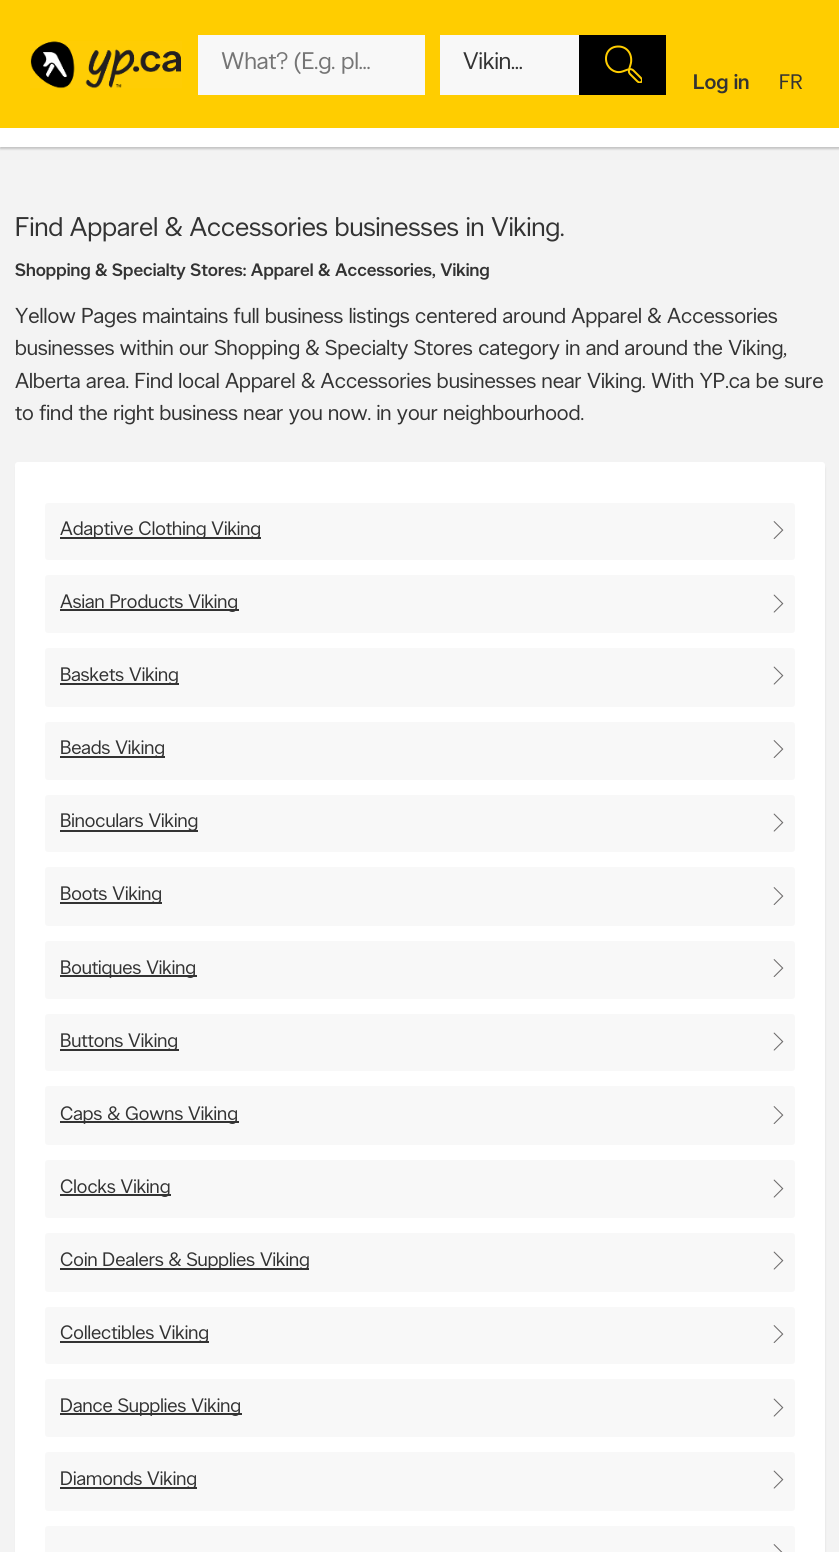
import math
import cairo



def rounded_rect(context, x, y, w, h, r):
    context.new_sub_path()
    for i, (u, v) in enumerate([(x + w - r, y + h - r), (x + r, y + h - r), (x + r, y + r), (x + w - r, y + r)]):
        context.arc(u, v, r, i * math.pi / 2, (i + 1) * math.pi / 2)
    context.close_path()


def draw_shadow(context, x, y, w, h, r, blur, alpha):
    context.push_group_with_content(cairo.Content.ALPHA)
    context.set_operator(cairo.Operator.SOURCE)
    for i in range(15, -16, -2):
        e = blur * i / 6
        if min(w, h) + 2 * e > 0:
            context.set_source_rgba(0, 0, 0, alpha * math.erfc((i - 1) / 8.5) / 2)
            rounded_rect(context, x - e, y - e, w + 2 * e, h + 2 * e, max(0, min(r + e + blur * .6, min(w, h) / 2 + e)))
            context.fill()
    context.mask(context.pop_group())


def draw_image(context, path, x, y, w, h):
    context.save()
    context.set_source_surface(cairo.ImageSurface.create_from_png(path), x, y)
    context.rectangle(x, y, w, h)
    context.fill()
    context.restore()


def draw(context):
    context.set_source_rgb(243 / 255, 243 / 255, 243 / 255)
    context.paint()
    context.set_source_rgb(0, 0, 0)
    draw_shadow(context, 0, 83, 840, 66, 0, 1, 0.2)
    context.set_source_rgb(1, 205 / 255, 0)
    context.rectangle(0, 0, 839, 128)
    context.fill()
    draw_image(context, "images/1.png", 30, 41, 152, 48)
    context.set_source_rgb(248 / 255, 248 / 255, 248 / 255)
    context.rectangle(198, 35, 227, 60)
    context.fill()
    context.rectangle(440, 35, 139, 60)
    context.fill()
    context.set_source_rgb(0, 0, 0)
    context.rectangle(579, 35, 87, 60)
    context.fill()
    draw_image(context, "images/2.png", 605, 45, 37, 38)
    context.set_source_rgb(1, 1, 1)
    context.rectangle(0, 128, 839, 19)
    context.fill()
    context.set_source_rgb(0, 0, 0)
    draw_shadow(context, 17, 467, 807, 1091, 1.5, 1.5, 0.2)
    context.set_source_rgb(1, 1, 1)
    rounded_rect(context, 15, 462, 810, 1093, 3)
    context.fill()
    context.set_source_rgb(248 / 255, 248 / 255, 248 / 255)
    rounded_rect(context, 45, 503, 750, 57, 3)
    context.fill()
    context.set_source_rgb(51 / 255, 51 / 255, 51 / 255)
    context.rectangle(60, 537, 201, 2)
    context.fill()
    draw_image(context, "images/3.png", 773, 521, 11, 18)
    context.set_source_rgb(248 / 255, 248 / 255, 248 / 255)
    rounded_rect(context, 45, 575, 750, 58, 3)
    context.fill()
    context.set_source_rgb(51 / 255, 51 / 255, 51 / 255)
    context.rectangle(60, 609, 179, 2)
    context.fill()
    draw_image(context, "images/4.png", 773, 594, 11, 19)
    context.set_source_rgb(248 / 255, 248 / 255, 248 / 255)
    rounded_rect(context, 45, 648, 750, 59, 3)
    context.fill()
    context.set_source_rgb(51 / 255, 51 / 255, 51 / 255)
    context.rectangle(60, 683, 119, 2)
    context.fill()
    draw_image(context, "images/4.png", 773, 666, 11, 19)
    context.set_source_rgb(248 / 255, 248 / 255, 248 / 255)
    rounded_rect(context, 45, 722, 750, 58, 3)
    context.fill()
    context.set_source_rgb(51 / 255, 51 / 255, 51 / 255)
    context.rectangle(60, 756, 105, 2)
    context.fill()
    draw_image(context, "images/3.png", 773, 740, 11, 18)
    context.set_source_rgb(248 / 255, 248 / 255, 248 / 255)
    rounded_rect(context, 45, 795, 750, 57, 3)
    context.fill()
    context.set_source_rgb(51 / 255, 51 / 255, 51 / 255)
    context.rectangle(60, 830, 138, 2)
    context.fill()
    draw_image(context, "images/4.png", 773, 813, 11, 19)
    context.set_source_rgb(248 / 255, 248 / 255, 248 / 255)
    rounded_rect(context, 45, 867, 750, 59, 3)
    context.fill()
    context.set_source_rgb(51 / 255, 51 / 255, 51 / 255)
    context.rectangle(60, 902, 102, 2)
    context.fill()
    draw_image(context, "images/3.png", 773, 887, 11, 18)
    context.set_source_rgb(248 / 255, 248 / 255, 248 / 255)
    rounded_rect(context, 45, 941, 750, 58, 3)
    context.fill()
    context.set_source_rgb(51 / 255, 51 / 255, 51 / 255)
    context.rectangle(60, 975, 137, 2)
    context.fill()
    draw_image(context, "images/3.png", 773, 959, 11, 18)
    context.set_source_rgb(248 / 255, 248 / 255, 248 / 255)
    rounded_rect(context, 45, 1014, 750, 57, 3)
    context.fill()
    context.set_source_rgb(51 / 255, 51 / 255, 51 / 255)
    context.rectangle(60, 1049, 119, 2)
    context.fill()
    draw_image(context, "images/4.png", 773, 1032, 11, 19)
    context.set_source_rgb(248 / 255, 248 / 255, 248 / 255)
    rounded_rect(context, 45, 1086, 750, 59, 3)
    context.fill()
    context.set_source_rgb(51 / 255, 51 / 255, 51 / 255)
    context.rectangle(60, 1121, 179, 2)
    context.fill()
    draw_image(context, "images/3.png", 773, 1106, 11, 18)
    context.set_source_rgb(248 / 255, 248 / 255, 248 / 255)
    rounded_rect(context, 45, 1160, 750, 58, 3)
    context.fill()
    context.set_source_rgb(51 / 255, 51 / 255, 51 / 255)
    context.rectangle(60, 1194, 111, 2)
    context.fill()
    draw_image(context, "images/4.png", 773, 1179, 11, 19)
    context.set_source_rgb(248 / 255, 248 / 255, 248 / 255)
    rounded_rect(context, 45, 1233, 750, 59, 3)
    context.fill()
    context.set_source_rgb(51 / 255, 51 / 255, 51 / 255)
    context.rectangle(60, 1268, 249, 2)
    context.fill()
    draw_image(context, "images/4.png", 773, 1251, 11, 19)
    context.set_source_rgb(248 / 255, 248 / 255, 248 / 255)
    rounded_rect(context, 45, 1307, 750, 57, 3)
    context.fill()
    context.set_source_rgb(51 / 255, 51 / 255, 51 / 255)
    context.rectangle(60, 1341, 149, 2)
    context.fill()
    draw_image(context, "images/3.png", 773, 1325, 11, 18)
    context.set_source_rgb(248 / 255, 248 / 255, 248 / 255)
    rounded_rect(context, 45, 1379, 750, 58, 3)
    context.fill()
    context.set_source_rgb(51 / 255, 51 / 255, 51 / 255)
    context.rectangle(60, 1413, 182, 2)
    context.fill()
    draw_image(context, "images/4.png", 773, 1398, 11, 19)
    context.set_source_rgb(248 / 255, 248 / 255, 248 / 255)
    rounded_rect(context, 45, 1452, 750, 59, 3)
    context.fill()
    context.set_source_rgb(51 / 255, 51 / 255, 51 / 255)
    context.rectangle(60, 1487, 137, 2)
    context.fill()
    draw_image(context, "images/4.png", 773, 1470, 11, 19)
    context.set_source_rgb(248 / 255, 248 / 255, 248 / 255)
    rounded_rect(context, 45, 1526, 750, 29, 3)
    context.fill()
    draw_image(context, "images/5.png", 773, 1544, 10, 8)
    context.select_font_face("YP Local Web")
    context.set_font_size(24)
    context.set_source_rgb(117 / 255, 117 / 255, 117 / 255)
    context.move_to(221, 69)
    context.show_text("What? (E.g. pl…")
    context.set_source_rgb(51 / 255, 51 / 255, 51 / 255)
    context.move_to(463, 69)
    context.show_text("Vikin…")
    context.select_font_face("YP Local Web Medium")
    context.set_font_size(21)
    context.move_to(693, 89)
    context.show_text("Log in")
    context.select_font_face("YP Local Web")
    context.move_to(779, 89)
    context.show_text("FR")
    context.set_font_size(27)
    context.move_to(15, 236)
    context.show_text("Find Apparel & Accessories businesses in Viking.")
    context.select_font_face("YP Local Web Medium")
    context.set_font_size(18)
    context.move_to(15, 276)
    context.show_text("Shopping & Specialty Stores: Apparel & Accessories, Viking")
    context.select_font_face("YP Local Web")
    context.set_font_size(21.6)
    context.move_to(15, 323)
    context.show_text("Yellow Pages maintains full business listings centered around Apparel & Accessories")
    context.move_to(15, 355)
    context.show_text("businesses within our Shopping & Specialty Stores category in and around the Viking,")
    context.move_to(15, 388)
    context.show_text("Alberta area. Find local Apparel & Accessories businesses near Viking. With YP.ca be sure")
    context.move_to(15, 420)
    context.show_text("to find the right business near you now. in your neighbourhood.")
    context.set_font_size(19.5)
    context.move_to(60, 535)
    context.show_text("Adaptive Clothing Viking")
    context.move_to(60, 608)
    context.show_text("Asian Products Viking")
    context.move_to(60, 681)
    context.show_text("Baskets Viking")
    context.move_to(60, 754)
    context.show_text("Beads Viking")
    context.move_to(60, 827)
    context.show_text("Binoculars Viking")
    context.move_to(60, 900)
    context.show_text("Boots Viking")
    context.move_to(60, 974)
    context.show_text("Boutiques Viking")
    context.move_to(60, 1047)
    context.show_text("Buttons Viking")
    context.move_to(60, 1120)
    context.show_text("Caps & Gowns Viking")
    context.move_to(60, 1193)
    context.show_text("Clocks Viking")
    context.move_to(60, 1266)
    context.show_text("Coin Dealers & Supplies Viking")
    context.move_to(60, 1339)
    context.show_text("Collectibles Viking")
    context.move_to(60, 1412)
    context.show_text("Dance Supplies Viking")
    context.move_to(60, 1485)
    context.show_text("Diamonds Viking")


surface = cairo.ImageSurface(cairo.Format.RGB24, 839, 1552)
context = cairo.Context(surface)
options = cairo.FontOptions()
options.set_hint_metrics(cairo.HintMetrics.OFF)
options.set_hint_style(cairo.HintStyle.NONE)
context.set_font_options(options)
context.set_miter_limit(4)
draw(context)
surface.write_to_png("out.png")
